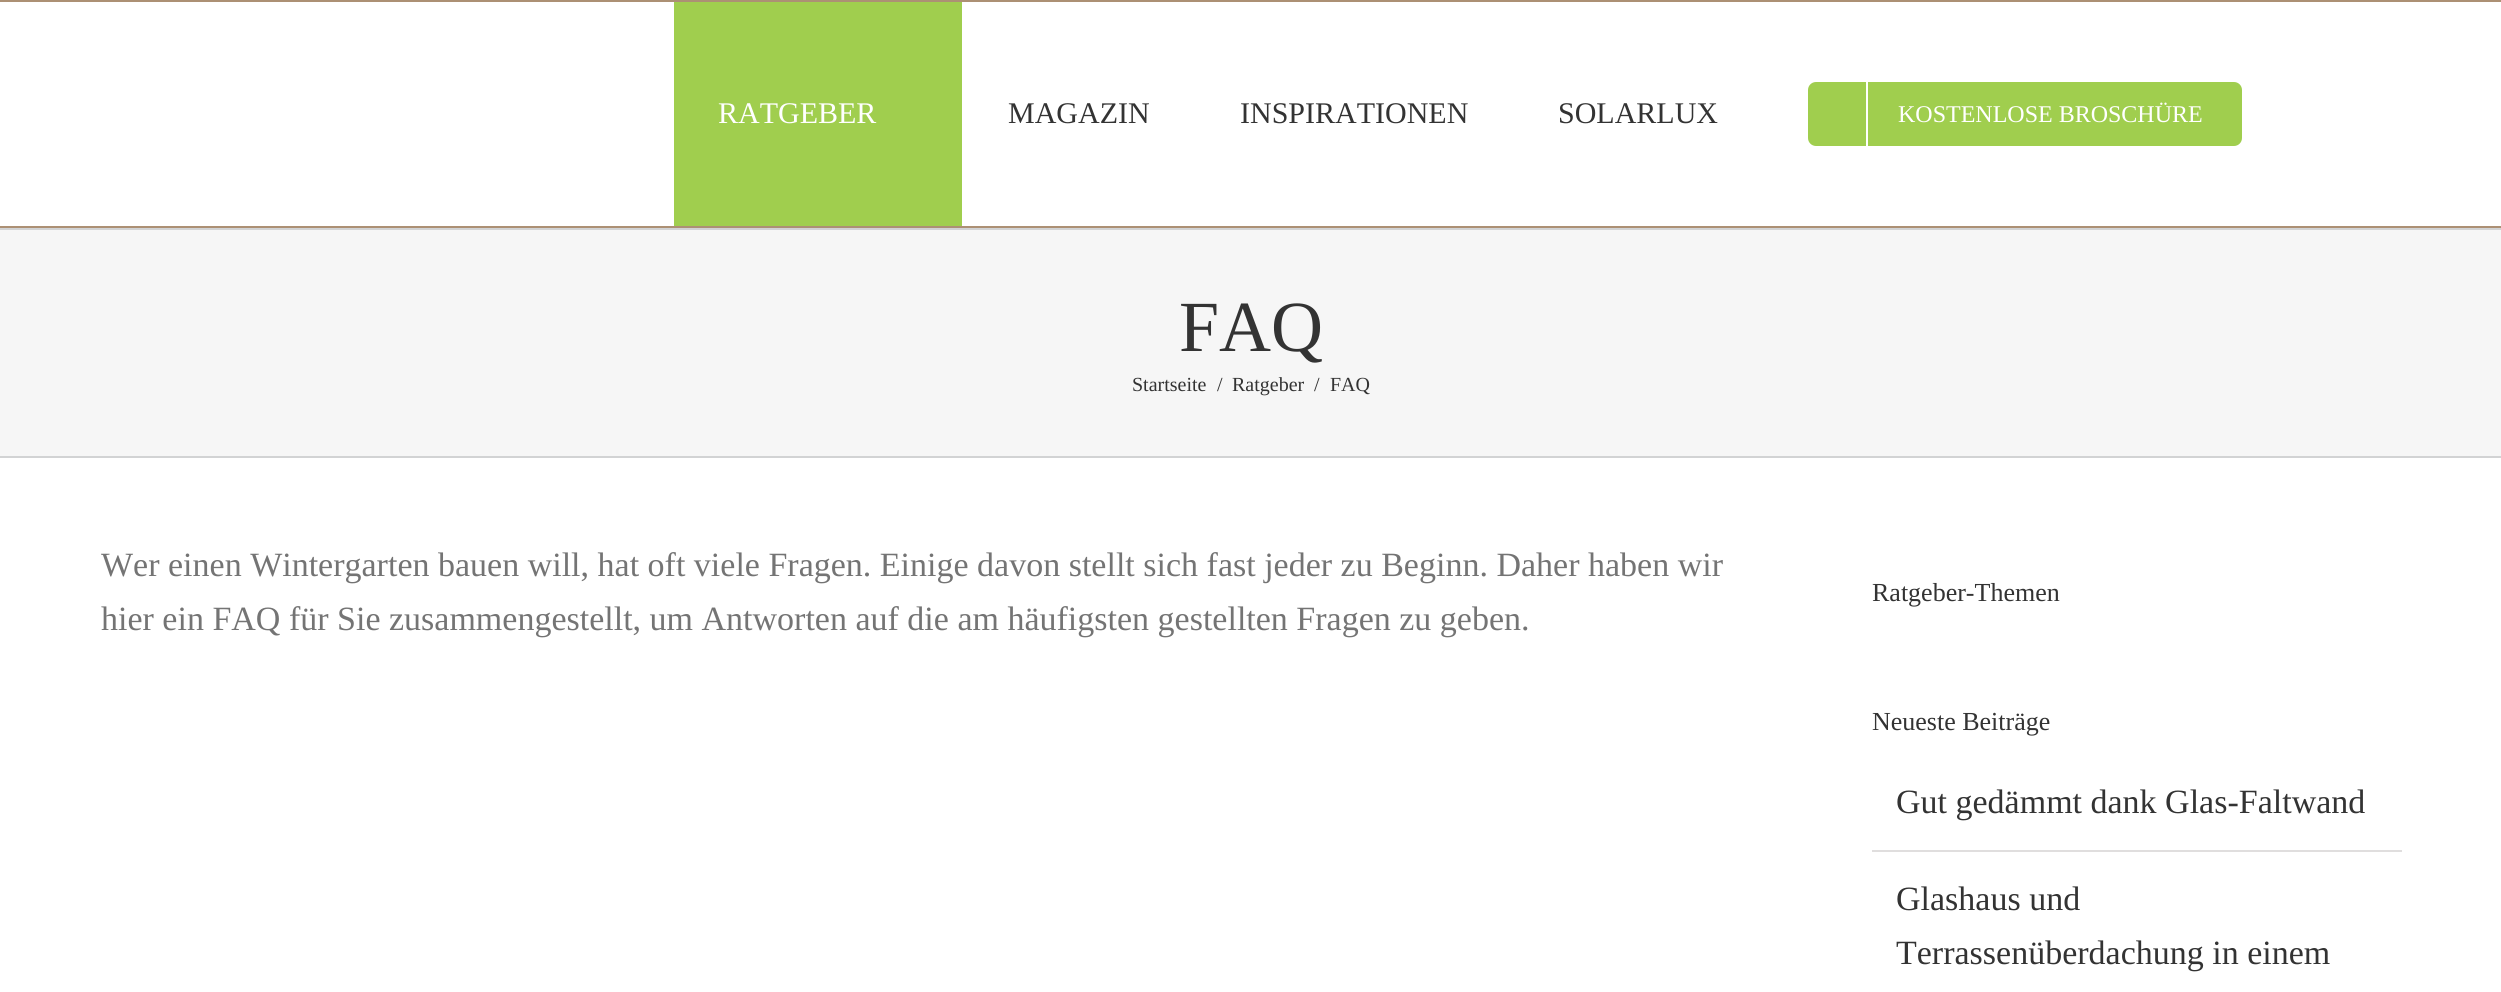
import math
import cairo



def rounded_rect(context, x, y, w, h, r):
    context.new_sub_path()
    for i, (u, v) in enumerate([(x + w - r, y + h - r), (x + r, y + h - r), (x + r, y + r), (x + w - r, y + r)]):
        context.arc(u, v, r, i * math.pi / 2, (i + 1) * math.pi / 2)
    context.close_path()


def draw(context):
    context.set_source_rgb(1, 1, 1)
    context.paint()
    context.set_source_rgb(172 / 255, 144 / 255, 116 / 255)
    context.rectangle(0, 0, 2501, 2)
    context.fill()
    context.rectangle(0, 226, 2501, 2)
    context.fill()
    context.set_source_rgb(160 / 255, 206 / 255, 78 / 255)
    context.rectangle(674, 2, 288, 224)
    context.fill()
    rounded_rect(context, 1808, 82, 434, 64, 8)
    context.fill()
    context.set_source_rgb(1, 1, 1)
    context.rectangle(1866, 82, 2, 64)
    context.fill()
    context.set_source_rgb(246 / 255, 246 / 255, 246 / 255)
    context.rectangle(0, 230, 2501, 226)
    context.fill()
    context.set_source_rgb(210 / 255, 211 / 255, 212 / 255)
    context.rectangle(0, 228, 2501, 2)
    context.fill()
    context.rectangle(0, 456, 2501, 2)
    context.fill()
    context.set_source_rgb(224 / 255, 222 / 255, 222 / 255)
    context.rectangle(1872, 850, 530, 2)
    context.fill()
    context.select_font_face("Liberation Serif")
    context.set_font_size(30)
    context.set_source_rgb(1, 1, 1)
    context.move_to(718, 123)
    context.show_text("RATGEBER")
    context.set_source_rgb(51 / 255, 51 / 255, 51 / 255)
    context.move_to(1008, 123)
    context.show_text("MAGAZIN")
    context.move_to(1240, 123)
    context.show_text("INSPIRATIONEN")
    context.move_to(1558, 123)
    context.show_text("SOLARLUX")
    context.set_font_size(24)
    context.set_source_rgb(1, 1, 1)
    context.move_to(1898, 122)
    context.show_text("KOSTENLOSE BROSCHÜRE")
    context.set_font_size(72)
    context.set_source_rgb(51 / 255, 51 / 255, 51 / 255)
    context.move_to(1179, 351)
    context.show_text("FAQ")
    context.set_font_size(20)
    context.move_to(1132, 391)
    context.show_text("Startseite")
    context.move_to(1217, 391)
    context.show_text("/")
    context.move_to(1232, 391)
    context.show_text("Ratgeber")
    context.move_to(1314, 391)
    context.show_text("/")
    context.move_to(1330, 391)
    context.show_text("FAQ")
    context.set_font_size(34)
    context.set_source_rgb(116 / 255, 116 / 255, 116 / 255)
    context.move_to(101, 576)
    context.show_text("Wer einen Wintergarten bauen will, hat oft viele Fragen. Einige davon stellt sich fast jeder zu Beginn. Daher haben wir")
    context.move_to(101, 630)
    context.show_text("hier ein FAQ für Sie zusammengestellt, um Antworten auf die am häufigsten gestellten Fragen zu geben.")
    context.set_font_size(26)
    context.set_source_rgb(51 / 255, 51 / 255, 51 / 255)
    context.move_to(1872, 601)
    context.show_text("Ratgeber-Themen")
    context.move_to(1872, 730)
    context.show_text("Neueste Beiträge")
    context.set_font_size(34)
    context.move_to(1896, 813)
    context.show_text("Gut gedämmt dank Glas-Faltwand")
    context.move_to(1896, 910)
    context.show_text("Glashaus und")
    context.move_to(1896, 964)
    context.show_text("Terrassenüberdachung in einem")


surface = cairo.ImageSurface(cairo.Format.RGB24, 2501, 992)
context = cairo.Context(surface)
options = cairo.FontOptions()
options.set_hint_metrics(cairo.HintMetrics.OFF)
options.set_hint_style(cairo.HintStyle.NONE)
context.set_font_options(options)
context.set_miter_limit(4)
draw(context)
surface.write_to_png("out.png")
